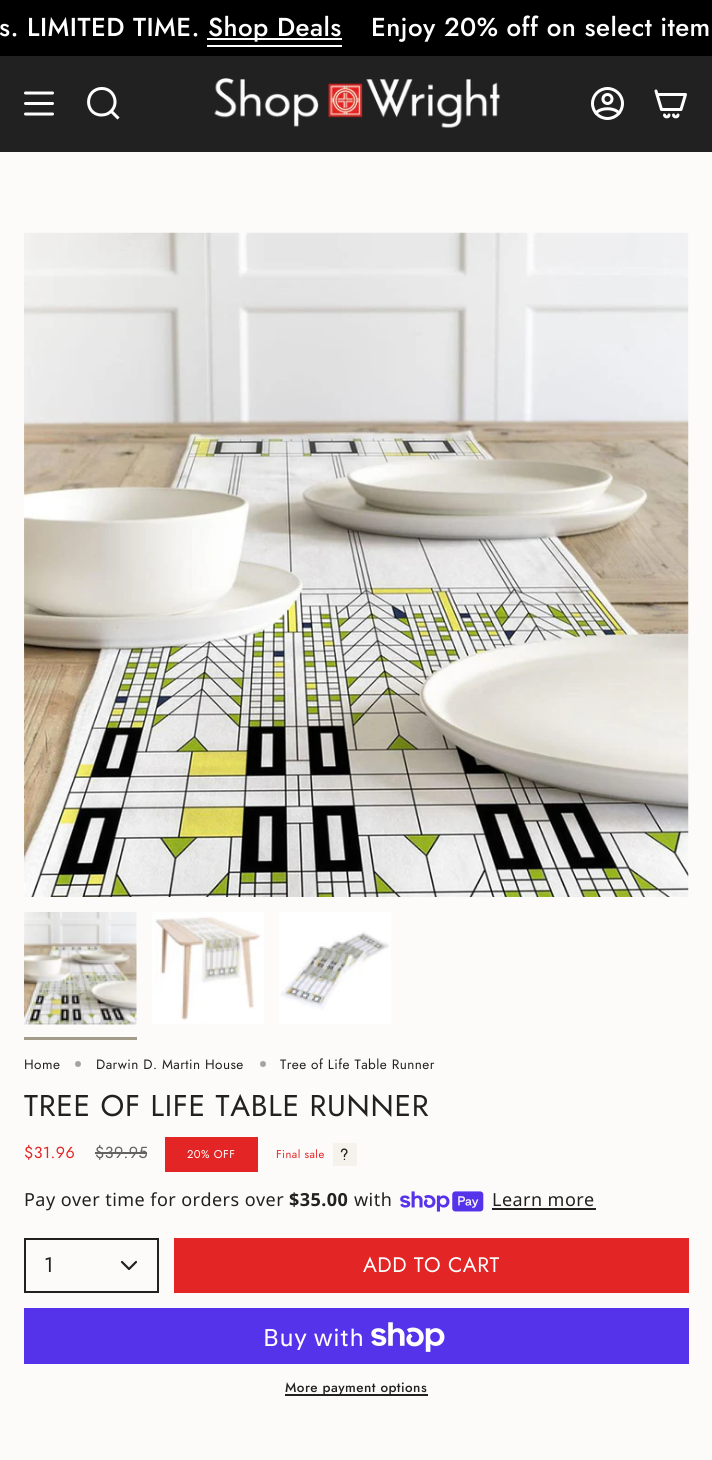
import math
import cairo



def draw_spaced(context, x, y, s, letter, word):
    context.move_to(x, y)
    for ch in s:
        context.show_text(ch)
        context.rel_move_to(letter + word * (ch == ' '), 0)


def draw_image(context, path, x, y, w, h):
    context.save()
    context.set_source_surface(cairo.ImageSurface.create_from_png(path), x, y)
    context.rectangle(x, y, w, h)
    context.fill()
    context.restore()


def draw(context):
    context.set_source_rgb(252 / 255, 251 / 255, 249 / 255)
    context.paint()
    context.set_source_rgb(0, 0, 0)
    context.rectangle(0, 0, 712, 56)
    context.fill()
    context.set_source_rgb(1, 1, 1)
    context.rectangle(207, 45, 135, 2)
    context.fill()
    context.rectangle(207, 38, 135, 2)
    context.fill()
    context.set_source_rgb(33 / 255, 33 / 255, 33 / 255)
    context.rectangle(0, 56, 712, 96)
    context.fill()
    context.new_path()
    context.move_to(25.5, 93)
    context.line_to(52.5, 93)
    context.move_to(25.5, 103.5)
    context.line_to(52.5, 103.5)
    context.move_to(25.5, 114)
    context.line_to(52.5, 114)
    context.set_source_rgb(1, 1, 1)
    context.set_line_width(3)
    context.set_line_cap(cairo.LineCap.ROUND)
    context.set_line_join(cairo.LineJoin.ROUND)
    context.stroke()
    context.new_path()
    context.move_to(102, 88.5)
    context.curve_to(114.5, 88.5, 120, 105, 109.5, 112.5)
    context.curve_to(107, 114.5, 104, 115, 101, 115)
    context.curve_to(84, 114.5, 84.5, 88.5, 102, 88.5)
    context.close_path()
    context.move_to(111, 111)
    context.line_to(118.5, 118.5)
    context.set_line_cap(cairo.LineCap.BUTT)
    context.set_line_join(cairo.LineJoin.MITER)
    context.stroke()
    draw_image(context, "images/1.png", 214, 78, 286, 50)
    draw_image(context, "images/2.png", 591, 87, 33, 33)
    context.new_path()
    context.move_to(657, 94.5)
    context.line_to(685.5, 94.5)
    context.line_to(681, 109.5)
    context.line_to(661.5, 109.5)
    context.close_path()
    context.move_to(657, 94.5)
    context.line_to(656, 91)
    context.move_to(669, 115)
    context.curve_to(669, 117.5, 664.5, 117.5, 664.5, 115)
    context.move_to(678, 115)
    context.curve_to(678, 117.5, 673.5, 117.5, 673.5, 115)
    context.set_line_cap(cairo.LineCap.ROUND)
    context.set_line_join(cairo.LineJoin.ROUND)
    context.stroke()
    draw_image(context, "images/3.png", 24, 232, 665, 665)
    draw_image(context, "images/4.png", 24, 912, 113, 113)
    context.set_source_rgb(164 / 255, 156 / 255, 139 / 255)
    context.rectangle(24, 1037, 113, 3)
    context.fill()
    draw_image(context, "images/5.png", 152, 912, 112, 112)
    draw_image(context, "images/6.png", 279, 912, 112, 112)
    context.set_source_rgb(164 / 255, 164 / 255, 163 / 255)
    context.arc(78, 1064, 3, 0, 2 * math.pi)
    context.fill()
    context.arc(263, 1064, 3, 0, 2 * math.pi)
    context.fill()
    context.set_source_rgb(99 / 255, 98 / 255, 98 / 255)
    context.rectangle(95, 1152, 52, 2)
    context.fill()
    context.set_source_rgb(227 / 255, 37 / 255, 37 / 255)
    context.rectangle(165, 1137, 93, 35)
    context.fill()
    context.set_source_rgb(245 / 255, 242 / 255, 236 / 255)
    context.rectangle(333, 1143, 24, 23)
    context.fill()
    draw_image(context, "images/7.png", 340, 1148, 8, 12)
    draw_image(context, "images/8.png", 400, 1191, 84, 21)
    context.set_source_rgb(33 / 255, 33 / 255, 33 / 255)
    context.rectangle(492, 1208, 104, 2)
    context.fill()
    context.rectangle(25, 1239, 133, 53)
    context.set_line_width(2)
    context.set_line_cap(cairo.LineCap.BUTT)
    context.set_line_join(cairo.LineJoin.MITER)
    context.stroke()
    context.new_path()
    context.move_to(122, 1262)
    context.line_to(129, 1269)
    context.line_to(136, 1262)
    context.set_line_width(2.2)
    context.set_line_cap(cairo.LineCap.ROUND)
    context.set_line_join(cairo.LineJoin.ROUND)
    context.stroke()
    context.set_source_rgb(227 / 255, 37 / 255, 37 / 255)
    context.rectangle(174, 1238, 515, 55)
    context.fill()
    context.set_source_rgb(84 / 255, 51 / 255, 235 / 255)
    context.rectangle(24, 1308, 665, 56)
    context.fill()
    draw_image(context, "images/9.png", 371, 1322, 74, 30)
    context.set_source_rgb(33 / 255, 33 / 255, 33 / 255)
    context.rectangle(285, 1394, 143, 2)
    context.fill()
    context.select_font_face("Jost Medium")
    context.set_font_size(25.9)
    context.set_source_rgb(1, 1, 1)
    draw_spaced(context, -1, 36, "s. LIMITED TIME.", 0.45, 0)
    draw_spaced(context, 208, 36, "Shop Deals", 0.45, 0)
    draw_spaced(context, 371, 36, "Enjoy 20% off on select item", 0.45, 0)
    context.select_font_face("Jost")
    context.set_font_size(13.5)
    context.set_source_rgb(33 / 255, 33 / 255, 33 / 255)
    draw_spaced(context, 24, 1069, "Home", 0.45, 0)
    draw_spaced(context, 96, 1069, "Darwin D. Martin House", 0.45, 0)
    draw_spaced(context, 280, 1069, "Tree of Life Table Runner", 0.45, 0)
    context.set_font_size(30)
    draw_spaced(context, 24, 1116, "TREE OF LIFE TABLE RUNNER", 0.75, 0)
    context.set_font_size(16)
    context.set_source_rgb(227 / 255, 37 / 255, 37 / 255)
    draw_spaced(context, 24, 1158, "$31.96", 0.45, 0)
    context.set_source_rgb(99 / 255, 98 / 255, 98 / 255)
    draw_spaced(context, 95, 1158, "$39.95", 0.45, 0)
    context.set_font_size(11.25)
    context.set_source_rgb(1, 1, 1)
    draw_spaced(context, 187, 1158, "20% OFF", 0.45, 0)
    context.set_source_rgb(227 / 255, 37 / 255, 37 / 255)
    draw_spaced(context, 276, 1158, "Final sale", 0.45, 0)
    context.select_font_face("Noto Sans")
    context.set_font_size(18)
    context.set_source_rgb(33 / 255, 33 / 255, 33 / 255)
    draw_spaced(context, 24, 1206, "Pay over time for orders over", 0.45, 0)
    context.select_font_face("Noto Sans", cairo.FontSlant.NORMAL, cairo.FontWeight.BOLD)
    draw_spaced(context, 289, 1206, "$35.00", 0.45, 0)
    context.select_font_face("Noto Sans")
    draw_spaced(context, 354, 1206, "with", 0.45, 0)
    draw_spaced(context, 492, 1206, "Learn more", 0.45, 0)
    context.select_font_face("Jost")
    context.set_font_size(21)
    context.move_to(44, 1272)
    context.show_text("1")
    context.set_source_rgb(1, 1, 1)
    draw_spaced(context, 363, 1272, "ADD TO CART", 0.5, 0)
    context.select_font_face("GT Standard")
    context.set_font_size(24)
    draw_spaced(context, 263, 1346, "Buy with", 0.45, 0)
    context.select_font_face("Jost Medium")
    context.set_font_size(13.5)
    context.set_source_rgb(33 / 255, 33 / 255, 33 / 255)
    draw_spaced(context, 285, 1392, "More payment options", 0.45, 0)


surface = cairo.ImageSurface(cairo.Format.RGB24, 712, 1460)
context = cairo.Context(surface)
options = cairo.FontOptions()
options.set_hint_metrics(cairo.HintMetrics.OFF)
options.set_hint_style(cairo.HintStyle.NONE)
context.set_font_options(options)
context.set_miter_limit(4)
draw(context)
surface.write_to_png("out.png")
